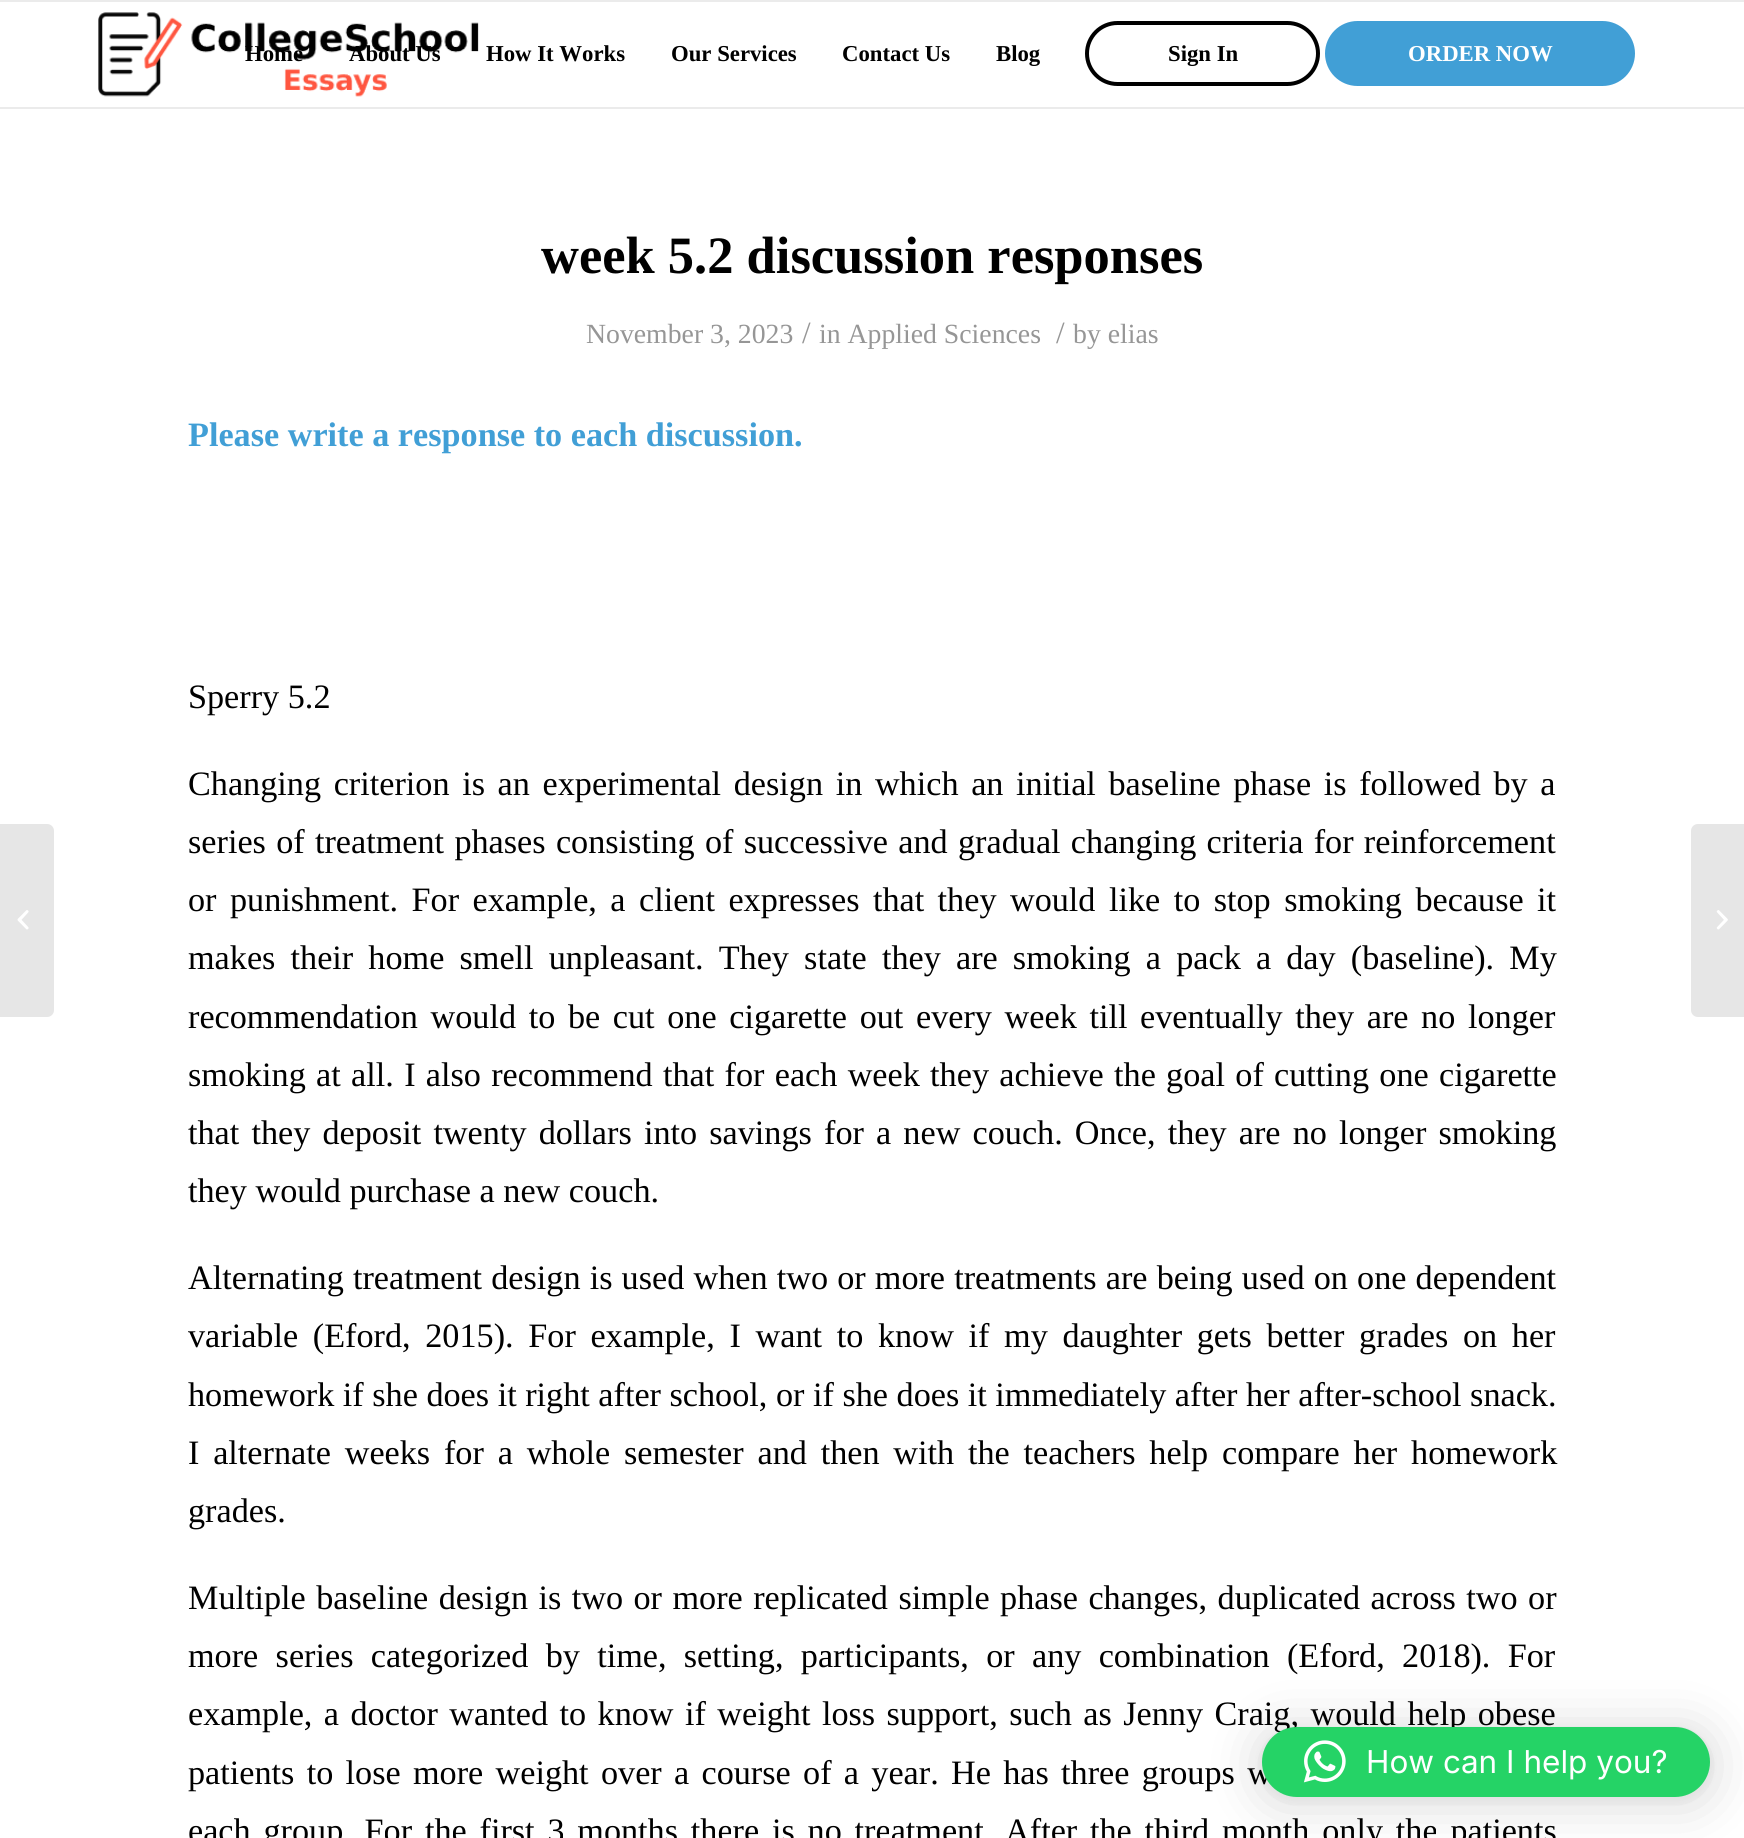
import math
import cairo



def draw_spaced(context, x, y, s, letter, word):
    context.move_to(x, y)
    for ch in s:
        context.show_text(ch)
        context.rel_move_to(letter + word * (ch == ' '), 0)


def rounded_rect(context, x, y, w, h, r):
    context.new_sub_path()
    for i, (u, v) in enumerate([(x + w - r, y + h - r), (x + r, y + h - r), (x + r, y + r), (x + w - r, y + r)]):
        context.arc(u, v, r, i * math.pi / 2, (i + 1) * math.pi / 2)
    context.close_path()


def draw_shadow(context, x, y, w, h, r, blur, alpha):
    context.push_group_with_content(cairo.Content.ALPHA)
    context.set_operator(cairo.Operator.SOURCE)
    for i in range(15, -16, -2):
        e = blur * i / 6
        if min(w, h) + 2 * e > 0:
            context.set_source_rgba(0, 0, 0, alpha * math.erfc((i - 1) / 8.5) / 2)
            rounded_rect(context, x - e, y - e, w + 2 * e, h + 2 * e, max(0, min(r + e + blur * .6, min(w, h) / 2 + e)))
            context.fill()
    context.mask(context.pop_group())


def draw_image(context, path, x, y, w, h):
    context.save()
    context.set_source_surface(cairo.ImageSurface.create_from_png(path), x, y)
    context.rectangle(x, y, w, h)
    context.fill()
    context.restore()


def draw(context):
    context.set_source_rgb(1, 1, 1)
    context.paint()
    context.set_source_rgb(230 / 255, 230 / 255, 230 / 255)
    context.new_path()
    context.move_to(0, 824)
    context.line_to(47, 824)
    context.curve_to(51, 824, 54, 827, 54, 831)
    context.line_to(54, 1010)
    context.curve_to(54, 1014, 51, 1017, 47, 1017)
    context.line_to(0, 1017)
    context.close_path()
    context.fill()
    draw_image(context, "images/1.png", 17, 910, 12, 20)
    context.set_source_rgb(235 / 255, 235 / 255, 235 / 255)
    context.rectangle(0, 0, 1744, 2)
    context.fill()
    context.rectangle(0, 107, 1744, 2)
    context.fill()
    draw_image(context, "images/2.png", 98, 12, 381, 85)
    rounded_rect(context, 1087, 23, 231, 61, 30.5)
    context.set_source_rgb(0, 0, 0)
    context.set_line_width(4)
    context.stroke()
    context.set_source_rgb(65 / 255, 159 / 255, 214 / 255)
    rounded_rect(context, 1327, 23, 306, 61, 30.5)
    context.fill_preserve()
    context.stroke()
    context.set_source_rgb(230 / 255, 230 / 255, 230 / 255)
    context.new_path()
    context.move_to(1698, 824)
    context.line_to(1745, 824)
    context.line_to(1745, 1017)
    context.line_to(1698, 1017)
    context.curve_to(1694, 1017, 1691, 1014, 1691, 1010)
    context.line_to(1691, 831)
    context.curve_to(1691, 827, 1694, 824, 1698, 824)
    context.close_path()
    context.fill()
    draw_image(context, "images/3.png", 1716, 910, 12, 20)
    context.set_source_rgb(0, 0, 0)
    draw_shadow(context, 1262, 1731, 448, 70, 35, 28, 0.16)
    draw_shadow(context, 1262, 1729, 448, 70, 35, 5, 0.06)
    context.select_font_face("Liberation Serif", cairo.FontSlant.NORMAL, cairo.FontWeight.BOLD)
    context.set_font_size(22.75)
    context.set_source_rgb(0, 0, 0)
    context.move_to(245, 61)
    context.show_text("Home")
    context.move_to(349, 61)
    context.show_text("About Us")
    context.move_to(486, 61)
    context.show_text("How It Works")
    context.move_to(671, 61)
    context.show_text("Our Services")
    context.move_to(842, 61)
    context.show_text("Contact Us")
    context.move_to(996, 61)
    context.show_text("Blog")
    context.move_to(1168, 61)
    context.show_text("Sign In")
    context.set_source_rgb(1, 1, 1)
    context.move_to(1408, 61)
    context.show_text("ORDER NOW")
    context.set_font_size(52.5)
    context.set_source_rgb(0, 0, 0)
    context.move_to(541, 273)
    context.show_text("week 5.2 discussion responses")
    context.select_font_face("Liberation Serif")
    context.set_font_size(27.75)
    context.set_source_rgb(150 / 255, 150 / 255, 150 / 255)
    context.move_to(586, 343)
    context.show_text("November 3, 2023")
    context.set_font_size(31)
    context.move_to(802, 343)
    context.show_text("/")
    context.set_font_size(27.75)
    context.move_to(819, 343)
    context.show_text("in Applied Sciences")
    context.set_font_size(31)
    context.move_to(1056, 343)
    context.show_text("/")
    context.set_font_size(27.75)
    context.move_to(1073, 343)
    context.show_text("by elias")
    context.select_font_face("Liberation Serif", cairo.FontSlant.NORMAL, cairo.FontWeight.BOLD)
    context.set_font_size(34.2)
    context.set_source_rgb(65 / 255, 159 / 255, 214 / 255)
    context.move_to(188, 446)
    context.show_text("Please write a response to each discussion.")
    context.select_font_face("Liberation Serif")
    context.set_source_rgb(0, 0, 0)
    context.move_to(188, 708)
    context.show_text("Sperry 5.2")
    draw_spaced(context, 188, 795, "Changing criterion is an experimental design in which an initial baseline phase is followed by a", 0, 4.1)
    draw_spaced(context, 188, 853, "series of treatment phases consisting of successive and gradual changing criteria for reinforcement", 0, 1.75)
    draw_spaced(context, 188, 911, "or punishment. For example, a client expresses that they would like to stop smoking because it", 0, 4.9)
    draw_spaced(context, 188, 969, "makes their home smell unpleasant. They state they are smoking a pack a day (baseline). My", 0, 6.6)
    draw_spaced(context, 188, 1028, "recommendation would to be cut one cigarette out every week till eventually they are no longer", 0, 4.1)
    draw_spaced(context, 188, 1086, "smoking at all. I also recommend that for each week they achieve the goal of cutting one cigarette", 0, 1.75)
    draw_spaced(context, 188, 1144, "that they deposit twenty dollars into savings for a new couch. Once, they are no longer smoking", 0, 3.6)
    context.move_to(188, 1202)
    context.show_text("they would purchase a new couch.")
    draw_spaced(context, 188, 1289, "Alternating treatment design is used when two or more treatments are being used on one dependent", 0, 0.6)
    draw_spaced(context, 188, 1347, "variable (Eford, 2015). For example, I want to know if my daughter gets better grades on her", 0, 6.1)
    context.move_to(188, 1406)
    context.show_text("homework if she does it right after school, or if she does it immediately after her after-school snack.")
    draw_spaced(context, 188, 1464, "I alternate weeks for a whole semester and then with the teachers help compare her homework", 0, 5.25)
    context.move_to(188, 1522)
    context.show_text("grades.")
    draw_spaced(context, 188, 1609, "Multiple baseline design is two or more replicated simple phase changes, duplicated across two or", 0, 1.9)
    draw_spaced(context, 188, 1667, "more series categorized by time, setting, participants, or any combination (Eford, 2018). For", 0, 8.75)
    draw_spaced(context, 188, 1725, "example, a doctor wanted to know if weight loss support, such as Jenny Craig, would help obese", 0, 2.9)
    draw_spaced(context, 188, 1784, "patients to lose more weight over a course of a year. He has three groups w", 0, 3.75)
    draw_spaced(context, 188, 1842, "each group. For the first 3 months there is no treatment. After the third month only the patients", 0, 4.25)
    context.set_source_rgb(37 / 255, 211 / 255, 102 / 255)
    rounded_rect(context, 1262, 1727, 448, 70, 35)
    context.fill()
    draw_image(context, "images/4.png", 1303, 1740, 43, 43)
    context.select_font_face("Inter")
    context.set_font_size(31.5)
    context.set_source_rgb(1, 1, 1)
    context.move_to(1366, 1773)
    context.show_text("How can I help you?")


surface = cairo.ImageSurface(cairo.Format.RGB24, 1744, 1838)
context = cairo.Context(surface)
options = cairo.FontOptions()
options.set_hint_metrics(cairo.HintMetrics.OFF)
options.set_hint_style(cairo.HintStyle.NONE)
context.set_font_options(options)
context.set_miter_limit(4)
draw(context)
surface.write_to_png("out.png")
